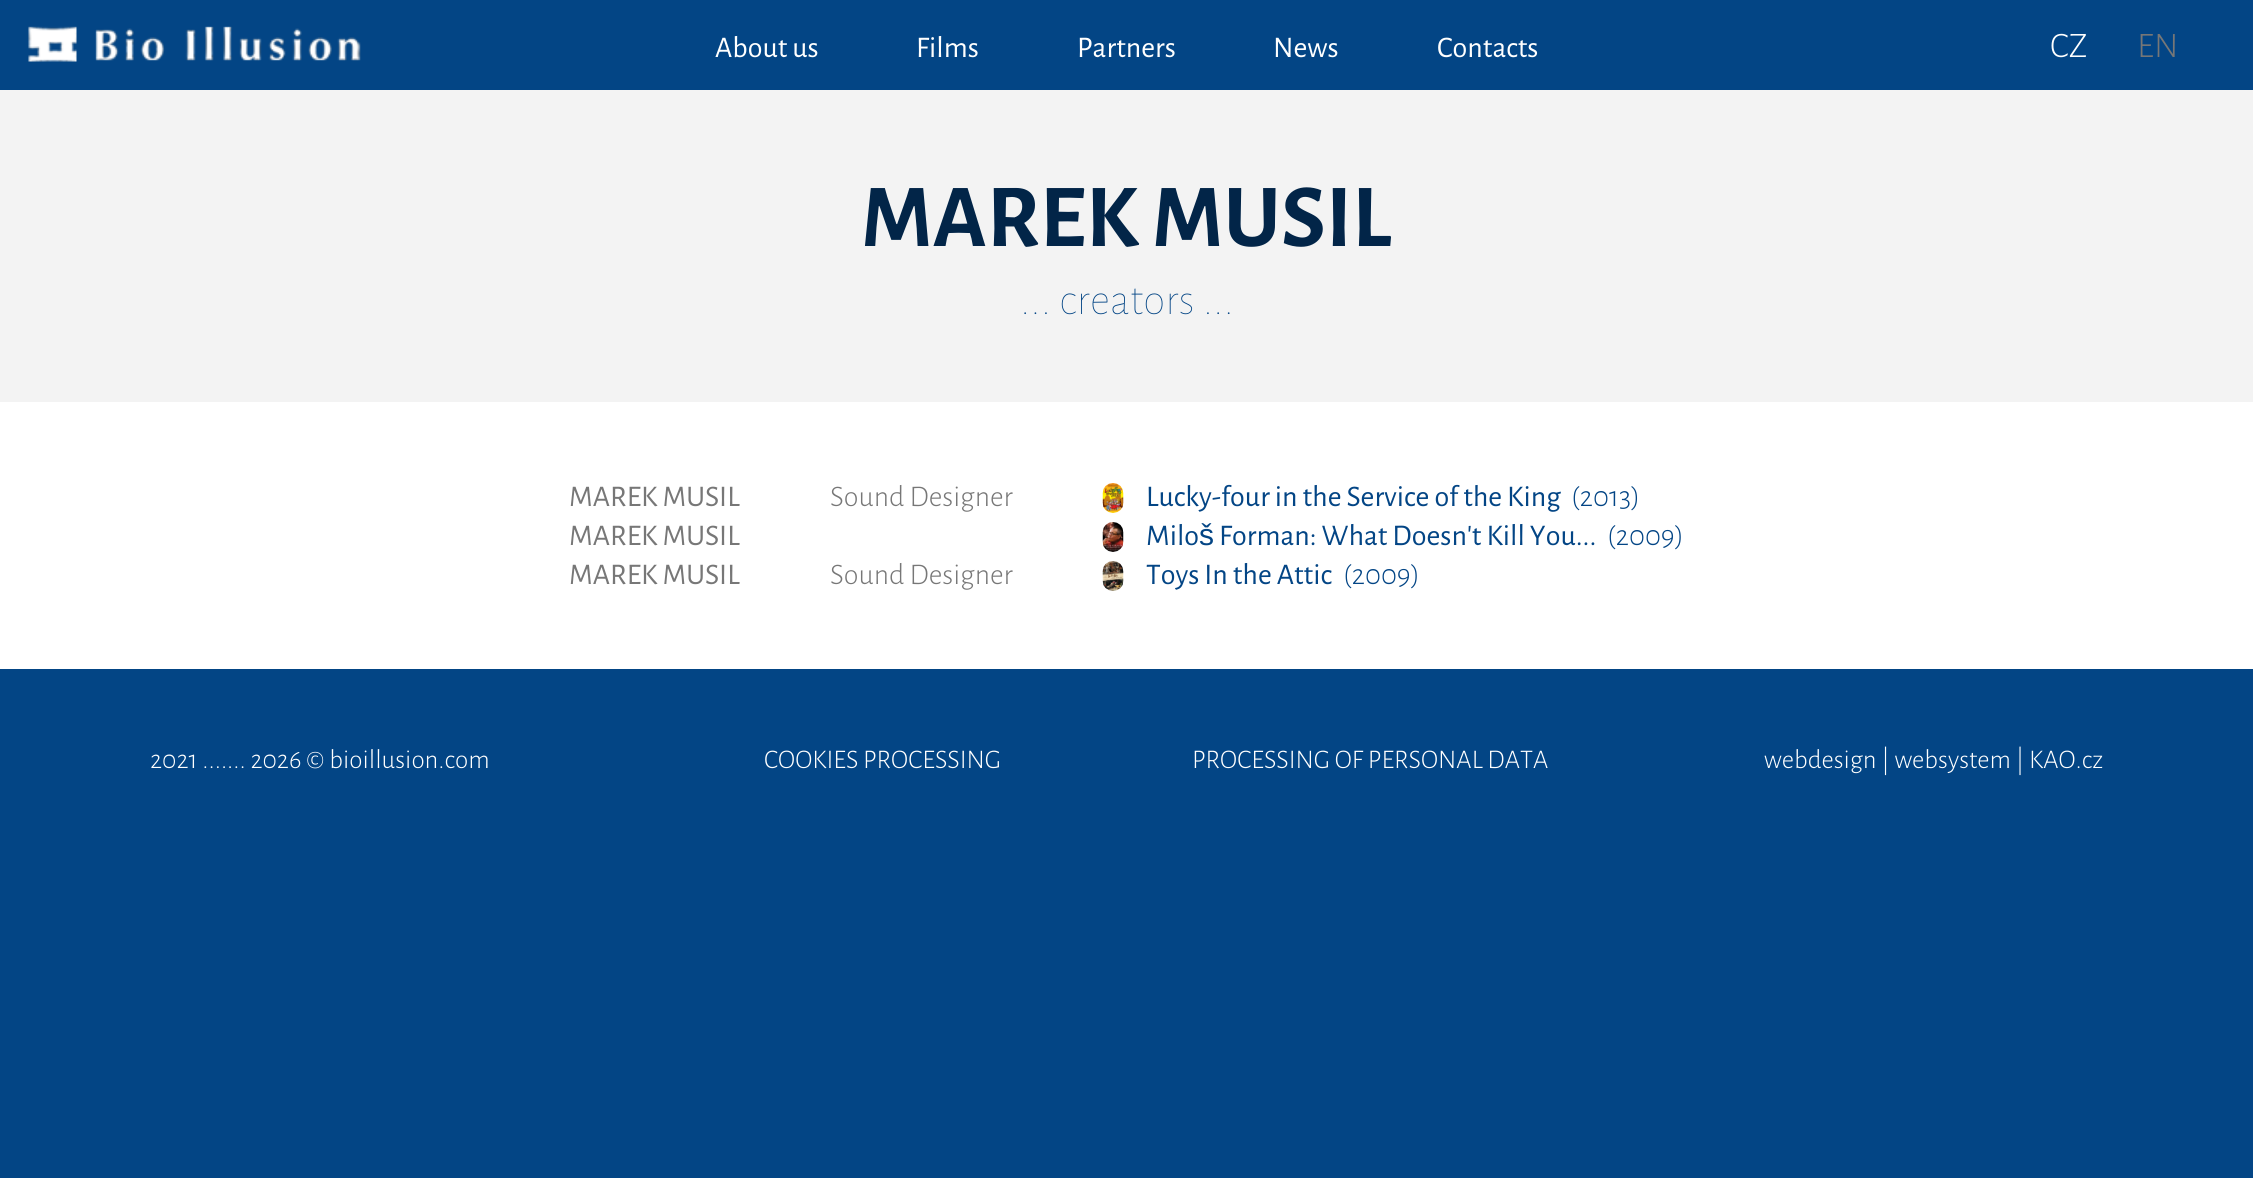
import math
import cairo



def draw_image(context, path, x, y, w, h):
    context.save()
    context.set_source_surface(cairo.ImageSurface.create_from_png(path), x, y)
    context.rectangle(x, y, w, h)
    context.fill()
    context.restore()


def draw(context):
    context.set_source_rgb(3 / 255, 69 / 255, 133 / 255)
    context.paint()
    draw_image(context, "images/1.png", 28, 26, 333, 36)
    context.set_source_rgb(243 / 255, 243 / 255, 243 / 255)
    context.rectangle(0, 90, 2253, 312)
    context.fill()
    context.set_source_rgb(1, 1, 1)
    context.rectangle(0, 402, 2253, 267)
    context.fill()
    draw_image(context, "images/2.png", 1102, 483, 22, 30)
    draw_image(context, "images/3.png", 1102, 522, 22, 30)
    draw_image(context, "images/4.png", 1102, 561, 22, 30)
    context.select_font_face("Alegreya Sans")
    context.set_font_size(30)
    context.move_to(715, 57)
    context.show_text("About us")
    context.move_to(916, 57)
    context.show_text("Films")
    context.move_to(1077, 57)
    context.show_text("Partners")
    context.move_to(1273, 57)
    context.show_text("News")
    context.move_to(1437, 57)
    context.show_text("Contacts")
    context.select_font_face("Alegreya Sans Light")
    context.set_font_size(36)
    context.move_to(2050, 57)
    context.show_text("CZ")
    context.set_source_rgb(119 / 255, 119 / 255, 119 / 255)
    context.move_to(2137, 57)
    context.show_text("EN")
    context.select_font_face("Alegreya Sans", cairo.FontSlant.NORMAL, cairo.FontWeight.BOLD)
    context.set_font_size(90)
    context.set_source_rgb(2 / 255, 37 / 255, 72 / 255)
    context.move_to(861, 246)
    context.show_text("MAREK MUSIL")
    context.select_font_face("Alegreya Sans Thin")
    context.set_font_size(45)
    context.set_source_rgb(3 / 255, 69 / 255, 133 / 255)
    context.move_to(1020, 314)
    context.show_text("... creators ...")
    context.select_font_face("Alegreya Sans")
    context.set_font_size(30)
    context.set_source_rgb(119 / 255, 119 / 255, 119 / 255)
    context.move_to(569, 506)
    context.show_text("MAREK MUSIL")
    context.select_font_face("Alegreya Sans Light")
    context.move_to(830, 506)
    context.show_text("Sound Designer")
    context.select_font_face("Alegreya Sans")
    context.set_source_rgb(3 / 255, 69 / 255, 133 / 255)
    context.move_to(1146, 506)
    context.show_text("Lucky-four in the Service of the King")
    context.select_font_face("Alegreya Sans Light")
    context.move_to(1571, 506)
    context.show_text("(2013)")
    context.select_font_face("Alegreya Sans")
    context.set_source_rgb(119 / 255, 119 / 255, 119 / 255)
    context.move_to(569, 545)
    context.show_text("MAREK MUSIL")
    context.set_source_rgb(3 / 255, 69 / 255, 133 / 255)
    context.move_to(1146, 545)
    context.show_text("Milo")
    context.select_font_face("Liberation Sans")
    context.move_to(1199, 545)
    context.show_text("š")
    context.select_font_face("Alegreya Sans")
    context.move_to(1219, 545)
    context.show_text("Forman: What Doesn't Kill You...")
    context.select_font_face("Alegreya Sans Light")
    context.move_to(1607, 545)
    context.show_text("(2009)")
    context.select_font_face("Alegreya Sans")
    context.set_source_rgb(119 / 255, 119 / 255, 119 / 255)
    context.move_to(569, 584)
    context.show_text("MAREK MUSIL")
    context.select_font_face("Alegreya Sans Light")
    context.move_to(830, 584)
    context.show_text("Sound Designer")
    context.select_font_face("Alegreya Sans")
    context.set_source_rgb(3 / 255, 69 / 255, 133 / 255)
    context.move_to(1146, 584)
    context.show_text("Toys In the Attic")
    context.select_font_face("Alegreya Sans Light")
    context.move_to(1343, 584)
    context.show_text("(2009)")
    context.set_font_size(27)
    context.set_source_rgb(1, 1, 1)
    context.move_to(150, 768)
    context.show_text("2021 ....... 2026 © bioillusion.com")
    context.move_to(764, 768)
    context.show_text("COOKIES PROCESSING")
    context.move_to(1192, 768)
    context.show_text("PROCESSING OF PERSONAL DATA")
    context.move_to(1764, 768)
    context.show_text("webdesign | websystem | KAO.cz")


surface = cairo.ImageSurface(cairo.Format.RGB24, 2253, 1178)
context = cairo.Context(surface)
options = cairo.FontOptions()
options.set_hint_metrics(cairo.HintMetrics.OFF)
options.set_hint_style(cairo.HintStyle.NONE)
context.set_font_options(options)
context.set_miter_limit(4)
draw(context)
surface.write_to_png("out.png")
